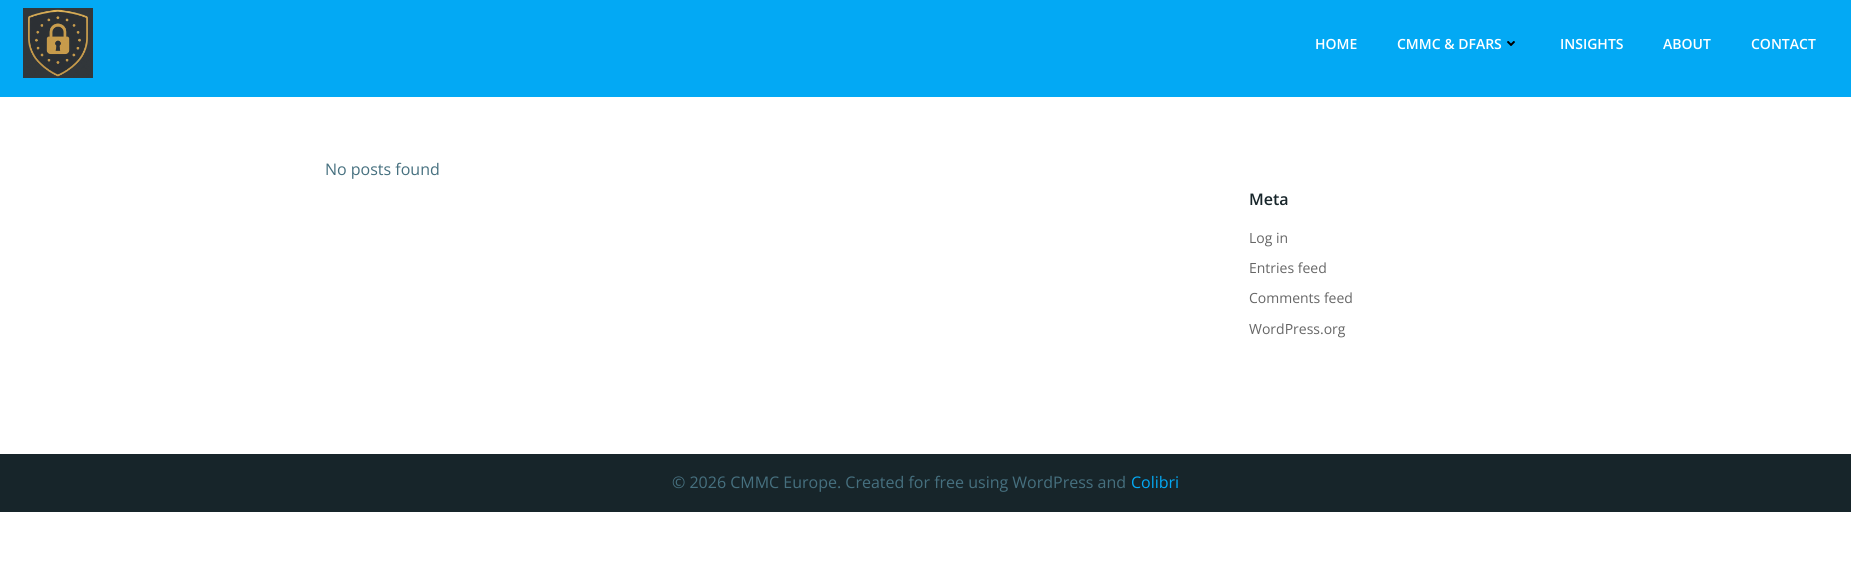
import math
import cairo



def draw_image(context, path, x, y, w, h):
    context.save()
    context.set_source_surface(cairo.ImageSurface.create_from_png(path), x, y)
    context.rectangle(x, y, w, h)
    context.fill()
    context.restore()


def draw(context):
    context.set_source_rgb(1, 1, 1)
    context.paint()
    context.set_source_rgb(3 / 255, 169 / 255, 244 / 255)
    context.rectangle(0, 0, 1851, 97)
    context.fill()
    draw_image(context, "images/1.png", 23, 8, 70, 70)
    draw_image(context, "images/2.png", 1507, 41, 8, 5)
    context.set_source_rgb(23 / 255, 37 / 255, 42 / 255)
    context.rectangle(0, 454, 1851, 58)
    context.fill()
    context.select_font_face("Open Sans SemiBold")
    context.set_font_size(14)
    context.set_source_rgb(1, 1, 1)
    context.move_to(1315, 49)
    context.show_text("HOME")
    context.move_to(1397, 49)
    context.show_text("CMMC & DFARS")
    context.move_to(1560, 49)
    context.show_text("INSIGHTS")
    context.move_to(1663, 49)
    context.show_text("ABOUT")
    context.move_to(1751, 49)
    context.show_text("CONTACT")
    context.select_font_face("Open Sans")
    context.set_font_size(16)
    context.set_source_rgb(70 / 255, 112 / 255, 127 / 255)
    context.move_to(325, 175)
    context.show_text("No posts found")
    context.select_font_face("Open Sans SemiBold")
    context.set_source_rgb(23 / 255, 37 / 255, 42 / 255)
    context.move_to(1249, 205)
    context.show_text("Meta")
    context.select_font_face("Open Sans")
    context.set_font_size(14)
    context.set_source_rgb(102 / 255, 102 / 255, 102 / 255)
    context.move_to(1249, 243)
    context.show_text("Log in")
    context.move_to(1249, 273)
    context.show_text("Entries feed")
    context.move_to(1249, 303)
    context.show_text("Comments feed")
    context.move_to(1249, 334)
    context.show_text("WordPress.org")
    context.set_font_size(16)
    context.set_source_rgb(70 / 255, 112 / 255, 127 / 255)
    context.move_to(672, 488)
    context.show_text("© 2026 CMMC Europe. Created for free using WordPress and")
    context.set_source_rgb(3 / 255, 169 / 255, 244 / 255)
    context.move_to(1131, 488)
    context.show_text("Colibri")


surface = cairo.ImageSurface(cairo.Format.RGB24, 1851, 579)
context = cairo.Context(surface)
options = cairo.FontOptions()
options.set_hint_metrics(cairo.HintMetrics.OFF)
options.set_hint_style(cairo.HintStyle.NONE)
context.set_font_options(options)
context.set_miter_limit(4)
draw(context)
surface.write_to_png("out.png")
